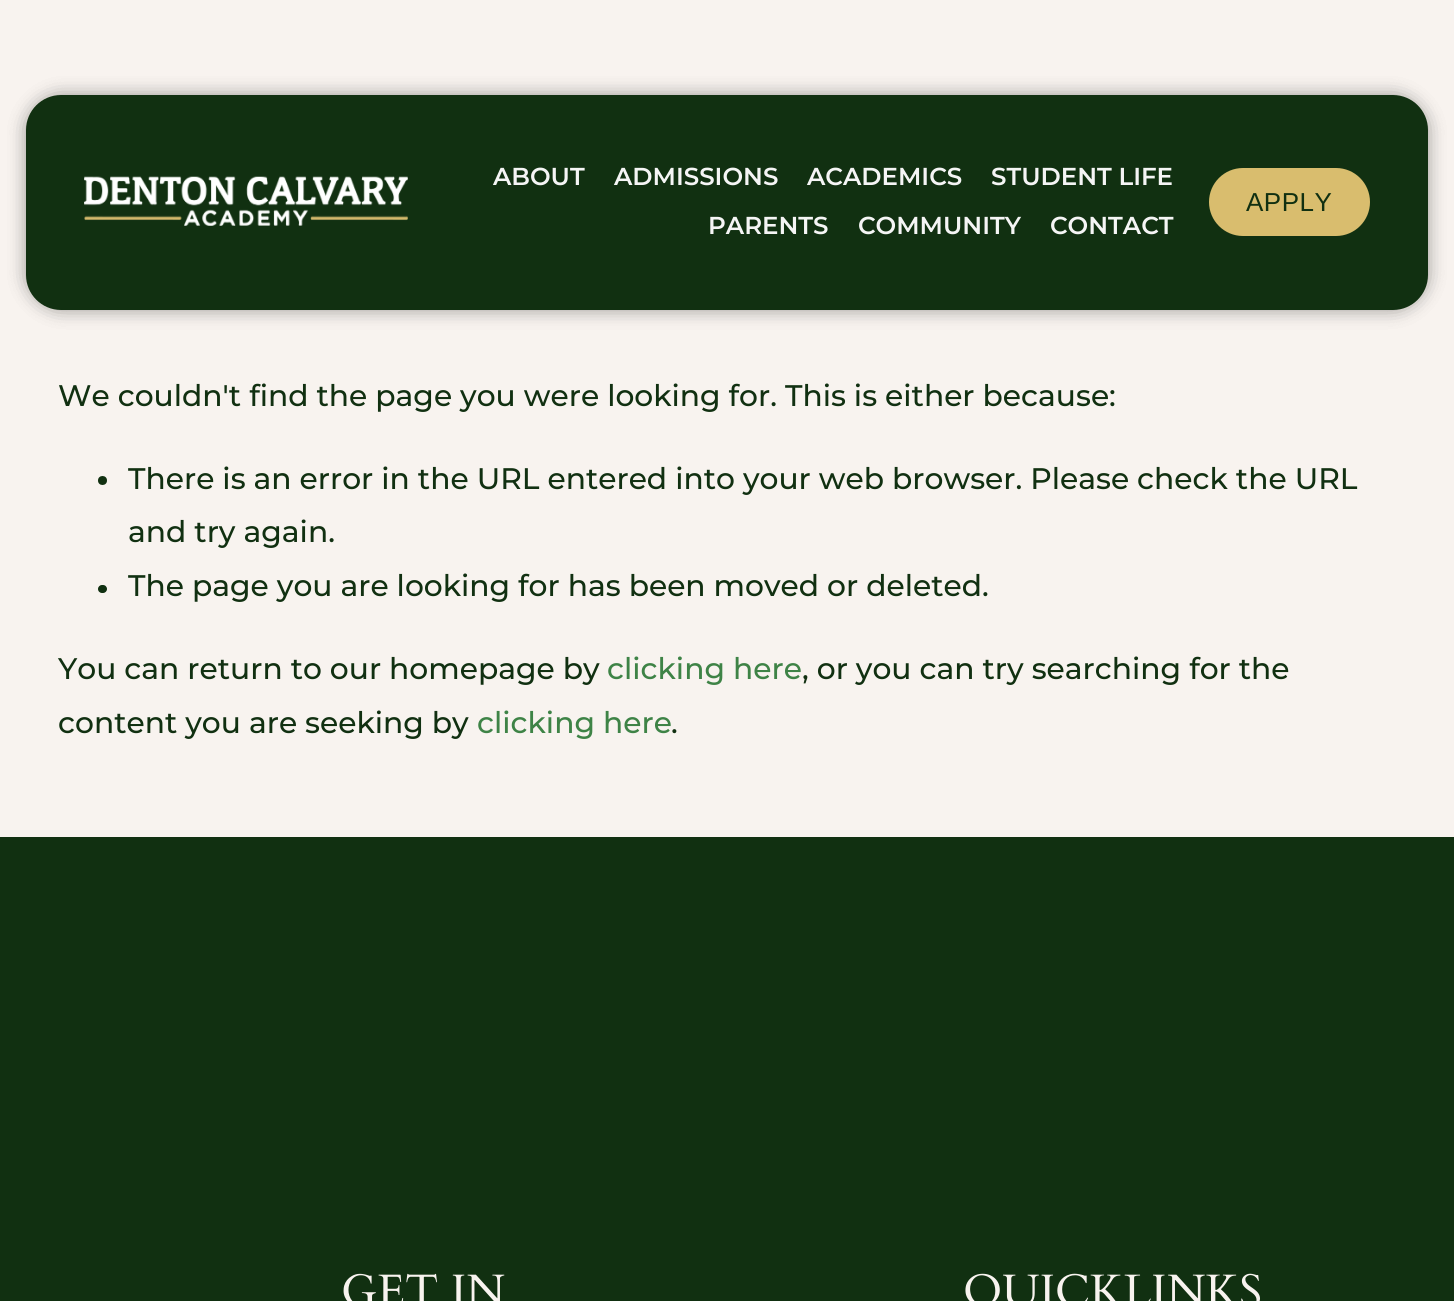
import math
import cairo



def draw_spaced(context, x, y, s, letter, word):
    context.move_to(x, y)
    for ch in s:
        context.show_text(ch)
        context.rel_move_to(letter + word * (ch == ' '), 0)


def rounded_rect(context, x, y, w, h, r):
    context.new_sub_path()
    for i, (u, v) in enumerate([(x + w - r, y + h - r), (x + r, y + h - r), (x + r, y + r), (x + w - r, y + r)]):
        context.arc(u, v, r, i * math.pi / 2, (i + 1) * math.pi / 2)
    context.close_path()


def draw_shadow(context, x, y, w, h, r, blur, alpha):
    context.push_group_with_content(cairo.Content.ALPHA)
    context.set_operator(cairo.Operator.SOURCE)
    for i in range(15, -16, -2):
        e = blur * i / 6
        if min(w, h) + 2 * e > 0:
            context.set_source_rgba(0, 0, 0, alpha * math.erfc((i - 1) / 8.5) / 2)
            rounded_rect(context, x - e, y - e, w + 2 * e, h + 2 * e, max(0, min(r + e + blur * .6, min(w, h) / 2 + e)))
            context.fill()
    context.mask(context.pop_group())


def draw_image(context, path, x, y, w, h):
    context.save()
    context.set_source_surface(cairo.ImageSurface.create_from_png(path), x, y)
    context.rectangle(x, y, w, h)
    context.fill()
    context.restore()


def draw(context):
    context.set_source_rgb(248 / 255, 243 / 255, 239 / 255)
    context.paint()
    context.set_source_rgb(0, 0, 0)
    draw_shadow(context, 26, 95, 1402, 215, 35, 9, 0.2)
    context.set_source_rgb(17 / 255, 48 / 255, 17 / 255)
    rounded_rect(context, 26, 95, 1402, 215, 35)
    context.fill()
    context.save()
    context.set_fill_rule(cairo.FillRule.EVEN_ODD)
    context.new_path()
    context.move_to(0, 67)
    context.line_to(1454, 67)
    context.line_to(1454, 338)
    context.line_to(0, 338)
    context.close_path()
    context.move_to(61, 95)
    context.line_to(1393, 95)
    context.curve_to(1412.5, 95, 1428, 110.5, 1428, 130)
    context.line_to(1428, 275)
    context.curve_to(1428, 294.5, 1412.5, 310, 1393, 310)
    context.line_to(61, 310)
    context.curve_to(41.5, 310, 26, 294.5, 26, 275)
    context.line_to(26, 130)
    context.curve_to(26, 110.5, 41.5, 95, 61, 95)
    context.close_path()
    context.clip()
    context.set_source_rgb(0, 0, 0)
    draw_shadow(context, 26, 95, 1402, 215, 35, 9, 0.2)
    context.restore()
    draw_image(context, "images/1.png", 84, 176, 324, 50)
    context.set_source_rgb(217 / 255, 189 / 255, 110 / 255)
    rounded_rect(context, 1209, 168, 161, 68, 34)
    context.fill()
    context.set_source_rgb(17 / 255, 48 / 255, 17 / 255)
    context.arc(102.5, 480.5, 4.5, 0, 2 * math.pi)
    context.fill()
    rounded_rect(context, 98, 585, 9, 8, 4)
    context.fill()
    context.rectangle(0, 837, 1454, 464)
    context.fill()
    context.select_font_face("Montserrat SemiBold")
    context.set_font_size(24.5)
    context.set_source_rgb(245 / 255, 245 / 255, 245 / 255)
    context.move_to(493, 185)
    context.show_text("ABOUT")
    context.move_to(614, 185)
    context.show_text("ADMISSIONS")
    context.move_to(807, 185)
    context.show_text("ACADEMICS")
    context.move_to(991, 185)
    context.show_text("STUDENT LIFE")
    context.move_to(708, 234)
    context.show_text("PARENTS")
    context.move_to(858, 234)
    context.show_text("COMMUNITY")
    context.move_to(1050, 234)
    context.show_text("CONTACT")
    context.select_font_face("Liberation Sans")
    context.set_font_size(26)
    context.set_source_rgb(17 / 255, 48 / 255, 17 / 255)
    draw_spaced(context, 1246, 211, "APPLY", 0.5, 0)
    context.select_font_face("Montserrat Medium")
    context.set_font_size(29.75)
    context.move_to(58, 406)
    context.show_text("We couldn't find the page you were looking for. This is either because:")
    context.move_to(128, 489)
    context.show_text("There is an error in the URL entered into your web browser. Please check the URL")
    context.move_to(128, 542)
    context.show_text("and try again.")
    context.move_to(128, 596)
    context.show_text("The page you are looking for has been moved or deleted.")
    context.move_to(58, 679)
    context.show_text("You can return to our homepage by")
    context.set_source_rgb(62 / 255, 131 / 255, 70 / 255)
    context.move_to(607, 679)
    context.show_text("clicking here")
    context.set_source_rgb(17 / 255, 48 / 255, 17 / 255)
    context.move_to(802, 679)
    context.show_text(", or you can try searching for the")
    context.move_to(58, 733)
    context.show_text("content you are seeking by")
    context.set_source_rgb(62 / 255, 131 / 255, 70 / 255)
    context.move_to(477, 733)
    context.show_text("clicking here")
    context.set_source_rgb(17 / 255, 48 / 255, 17 / 255)
    context.move_to(671, 733)
    context.show_text(".")
    context.select_font_face("Cardo")
    context.set_font_size(45.5)
    context.set_source_rgb(248 / 255, 243 / 255, 239 / 255)
    context.move_to(341, 1306)
    context.show_text("GET IN")
    context.move_to(963, 1306)
    context.show_text("QUICKLINKS")


surface = cairo.ImageSurface(cairo.Format.RGB24, 1454, 1301)
context = cairo.Context(surface)
options = cairo.FontOptions()
options.set_hint_metrics(cairo.HintMetrics.OFF)
options.set_hint_style(cairo.HintStyle.NONE)
context.set_font_options(options)
context.set_miter_limit(4)
draw(context)
surface.write_to_png("out.png")
